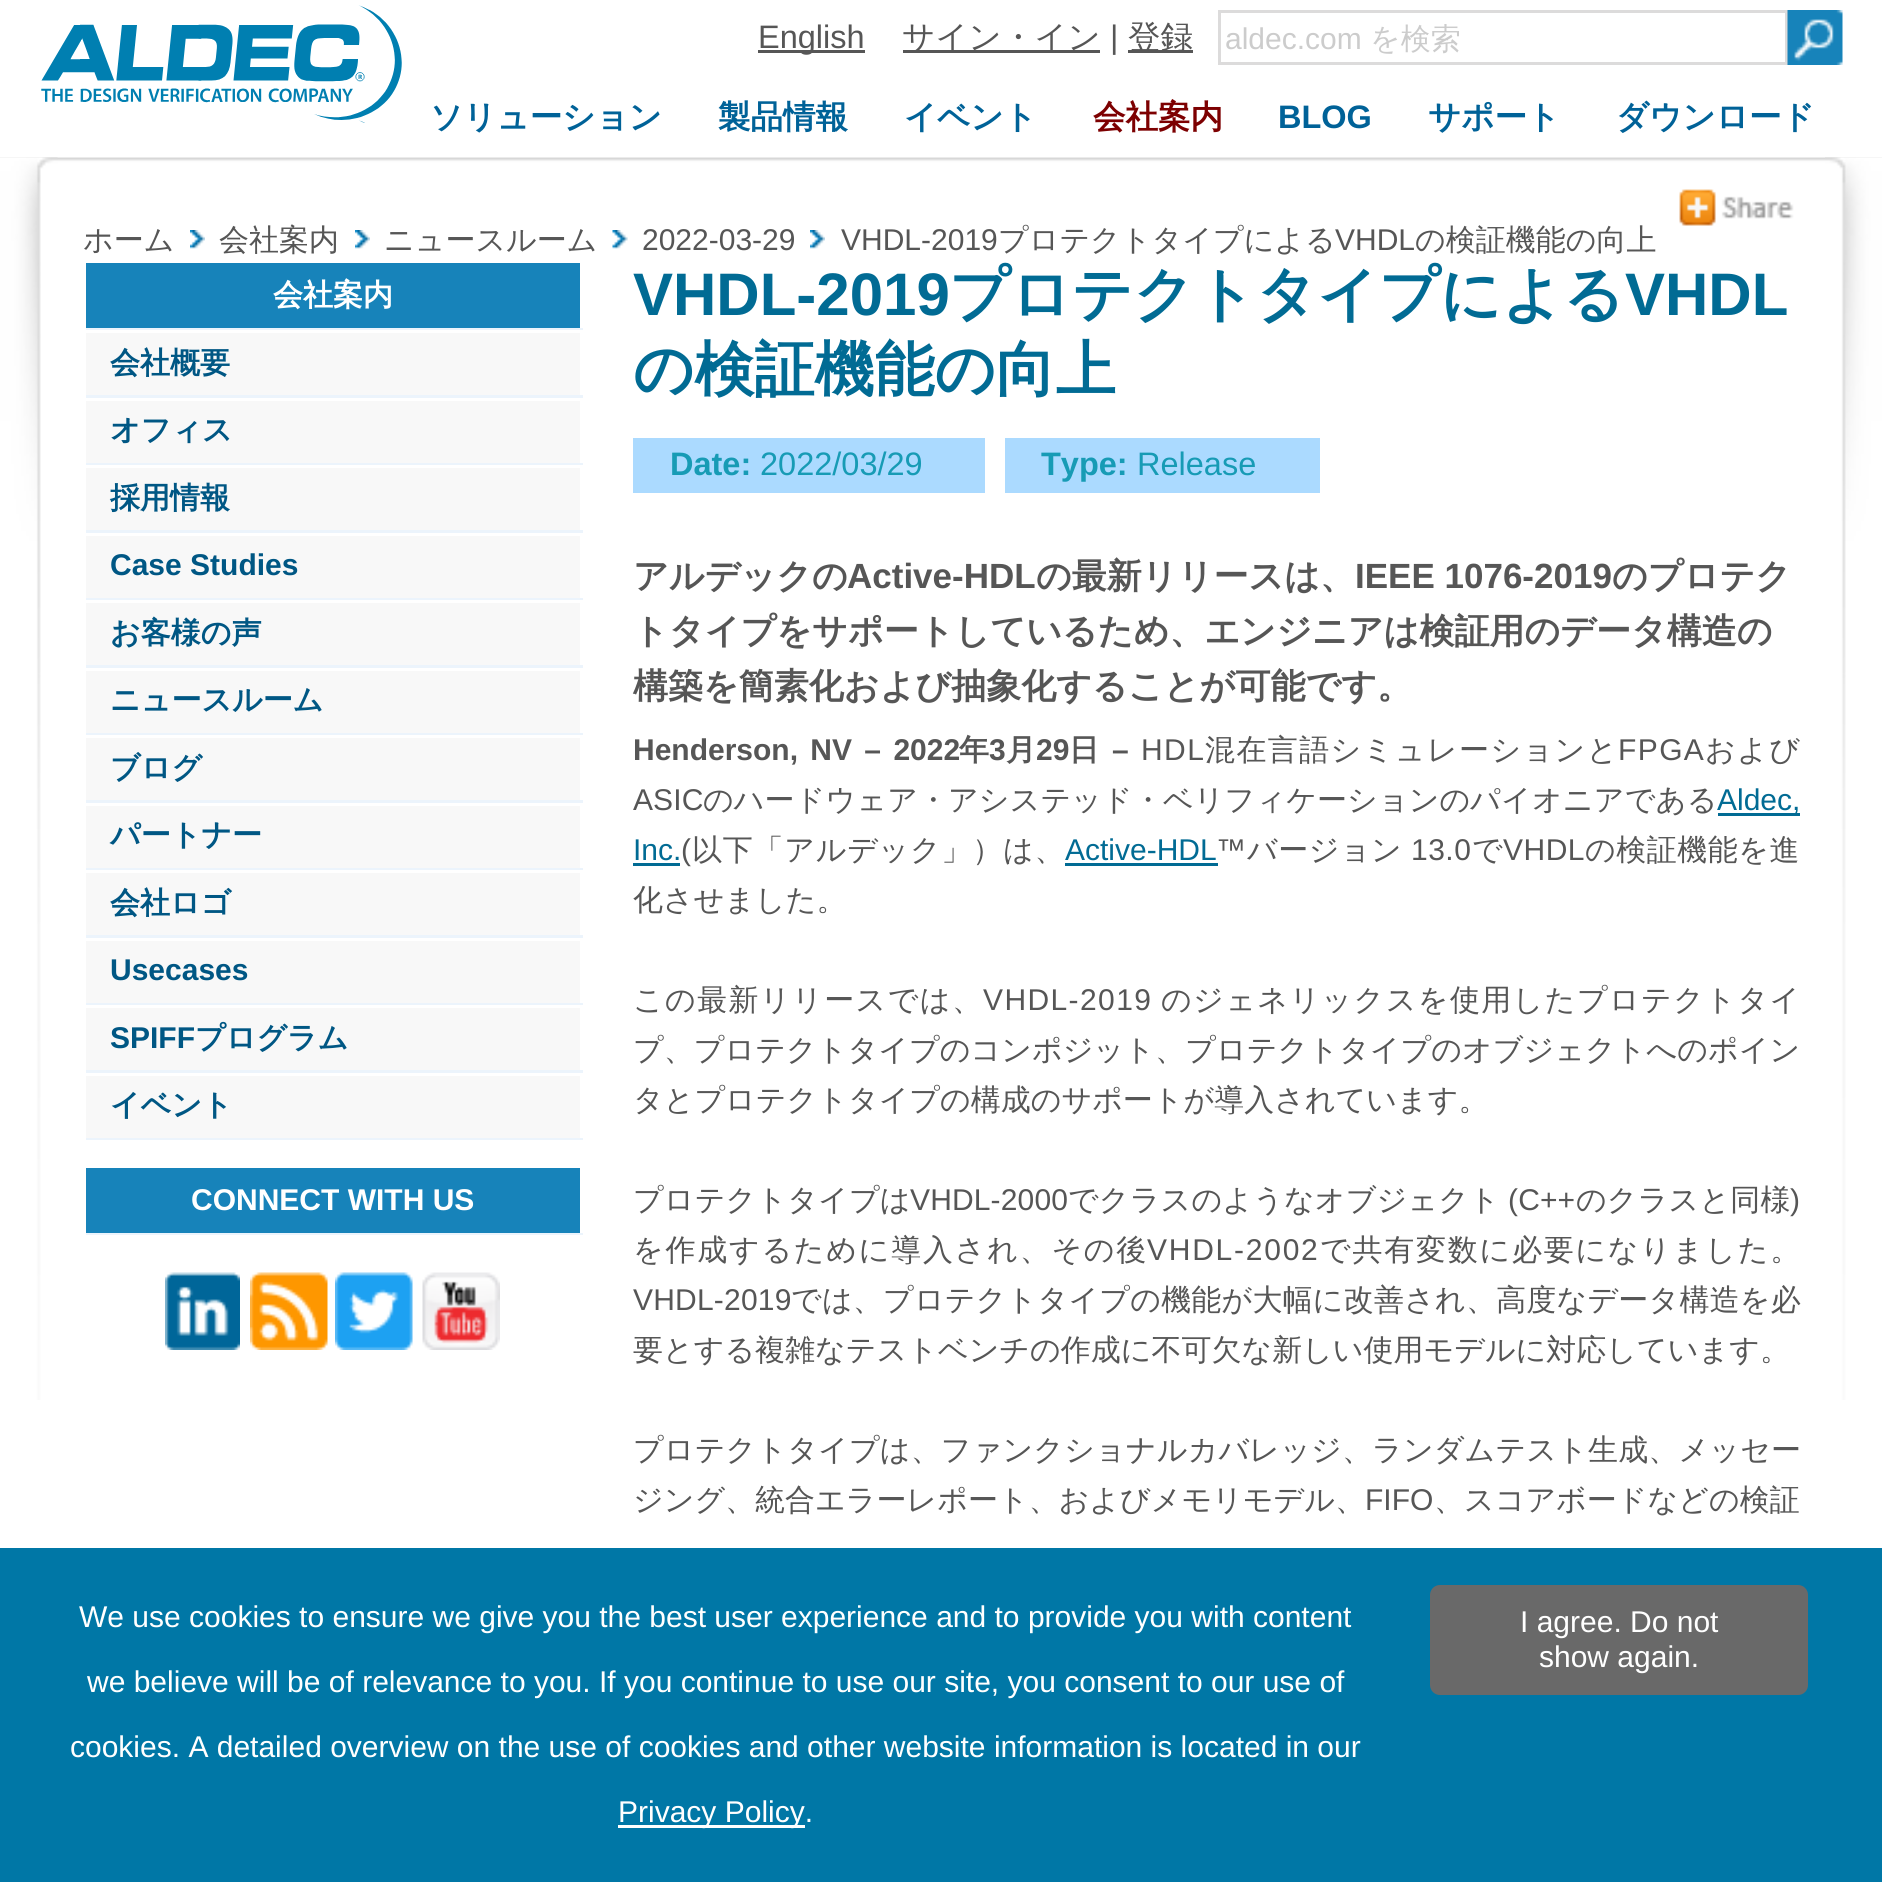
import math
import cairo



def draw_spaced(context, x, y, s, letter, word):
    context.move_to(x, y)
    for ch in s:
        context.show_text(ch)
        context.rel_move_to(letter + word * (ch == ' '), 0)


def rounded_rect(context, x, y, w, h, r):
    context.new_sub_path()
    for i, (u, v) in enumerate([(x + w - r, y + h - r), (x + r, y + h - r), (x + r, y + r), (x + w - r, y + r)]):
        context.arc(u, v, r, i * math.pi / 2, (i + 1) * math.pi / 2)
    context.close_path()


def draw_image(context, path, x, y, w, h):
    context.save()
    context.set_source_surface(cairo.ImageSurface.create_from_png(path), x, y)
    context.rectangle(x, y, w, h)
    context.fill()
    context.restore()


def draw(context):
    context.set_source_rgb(1, 1, 1)
    context.paint()
    draw_image(context, "images/1.png", 41, 5, 361, 118)
    context.set_source_rgb(86 / 255, 86 / 255, 86 / 255)
    context.rectangle(758, 50, 107, 3)
    context.fill()
    context.rectangle(903, 50, 197, 3)
    context.fill()
    context.rectangle(1128, 50, 65, 3)
    context.fill()
    context.rectangle(1219.5, 11.5, 567, 52)
    context.set_source_rgb(220 / 255, 219 / 255, 219 / 255)
    context.set_line_width(3)
    context.stroke()
    draw_image(context, "images/2.png", 1787, 10, 56, 55)
    draw_image(context, "images/3.png", 0, 157, 1882, 1243)
    draw_image(context, "images/4.png", 1679, 189, 115, 37)
    draw_image(context, "images/5.png", 190, 230, 15, 19)
    draw_image(context, "images/5.png", 355, 230, 15, 19)
    draw_image(context, "images/6.png", 612, 230, 16, 19)
    draw_image(context, "images/7.png", 810, 230, 15, 19)
    context.set_source_rgb(23 / 255, 131 / 255, 186 / 255)
    context.rectangle(86, 263, 494, 65)
    context.fill()
    context.set_source_rgb(236 / 255, 244 / 255, 252 / 255)
    context.rectangle(83, 328, 500, 2)
    context.fill()
    context.set_source_rgb(1, 1, 1)
    context.rectangle(83, 328, 3, 2)
    context.fill()
    context.set_source_rgb(248 / 255, 248 / 255, 248 / 255)
    context.rectangle(86, 333, 494, 62)
    context.fill()
    context.set_source_rgb(236 / 255, 244 / 255, 252 / 255)
    context.rectangle(83, 395, 500, 3)
    context.fill()
    context.set_source_rgb(1, 1, 1)
    context.rectangle(83, 395, 3, 3)
    context.fill()
    context.set_source_rgb(248 / 255, 248 / 255, 248 / 255)
    context.rectangle(86, 401, 494, 62)
    context.fill()
    context.set_source_rgb(236 / 255, 244 / 255, 252 / 255)
    context.rectangle(83, 463, 500, 2)
    context.fill()
    context.set_source_rgb(1, 1, 1)
    context.rectangle(83, 463, 3, 2)
    context.fill()
    context.set_source_rgb(248 / 255, 248 / 255, 248 / 255)
    context.rectangle(86, 468, 494, 62)
    context.fill()
    context.set_source_rgb(236 / 255, 244 / 255, 252 / 255)
    context.rectangle(83, 530, 500, 3)
    context.fill()
    context.set_source_rgb(1, 1, 1)
    context.rectangle(83, 530, 3, 3)
    context.fill()
    context.set_source_rgb(248 / 255, 248 / 255, 248 / 255)
    context.rectangle(86, 536, 494, 62)
    context.fill()
    context.set_source_rgb(236 / 255, 244 / 255, 252 / 255)
    context.rectangle(83, 598, 500, 2)
    context.fill()
    context.set_source_rgb(1, 1, 1)
    context.rectangle(83, 598, 3, 2)
    context.fill()
    context.set_source_rgb(248 / 255, 248 / 255, 248 / 255)
    context.rectangle(86, 603, 494, 62)
    context.fill()
    context.set_source_rgb(236 / 255, 244 / 255, 252 / 255)
    context.rectangle(83, 665, 500, 3)
    context.fill()
    context.set_source_rgb(1, 1, 1)
    context.rectangle(83, 665, 3, 3)
    context.fill()
    context.set_source_rgb(248 / 255, 248 / 255, 248 / 255)
    context.rectangle(86, 671, 494, 62)
    context.fill()
    context.set_source_rgb(236 / 255, 244 / 255, 252 / 255)
    context.rectangle(83, 733, 500, 2)
    context.fill()
    context.set_source_rgb(1, 1, 1)
    context.rectangle(83, 733, 3, 2)
    context.fill()
    context.set_source_rgb(248 / 255, 248 / 255, 248 / 255)
    context.rectangle(86, 738, 494, 62)
    context.fill()
    context.set_source_rgb(236 / 255, 244 / 255, 252 / 255)
    context.rectangle(83, 800, 500, 3)
    context.fill()
    context.set_source_rgb(1, 1, 1)
    context.rectangle(83, 800, 3, 3)
    context.fill()
    context.set_source_rgb(248 / 255, 248 / 255, 248 / 255)
    context.rectangle(86, 806, 494, 62)
    context.fill()
    context.set_source_rgb(236 / 255, 244 / 255, 252 / 255)
    context.rectangle(83, 868, 500, 2)
    context.fill()
    context.set_source_rgb(1, 1, 1)
    context.rectangle(83, 868, 3, 2)
    context.fill()
    context.set_source_rgb(248 / 255, 248 / 255, 248 / 255)
    context.rectangle(86, 873, 494, 62)
    context.fill()
    context.set_source_rgb(236 / 255, 244 / 255, 252 / 255)
    context.rectangle(83, 935, 500, 3)
    context.fill()
    context.set_source_rgb(1, 1, 1)
    context.rectangle(83, 935, 3, 3)
    context.fill()
    context.set_source_rgb(248 / 255, 248 / 255, 248 / 255)
    context.rectangle(86, 941, 494, 62)
    context.fill()
    context.set_source_rgb(236 / 255, 244 / 255, 252 / 255)
    context.rectangle(83, 1003, 500, 2)
    context.fill()
    context.set_source_rgb(1, 1, 1)
    context.rectangle(83, 1003, 3, 2)
    context.fill()
    context.set_source_rgb(248 / 255, 248 / 255, 248 / 255)
    context.rectangle(86, 1008, 494, 62)
    context.fill()
    context.set_source_rgb(236 / 255, 244 / 255, 252 / 255)
    context.rectangle(83, 1070, 500, 3)
    context.fill()
    context.set_source_rgb(1, 1, 1)
    context.rectangle(83, 1070, 3, 3)
    context.fill()
    context.set_source_rgb(248 / 255, 248 / 255, 248 / 255)
    context.rectangle(86, 1076, 494, 62)
    context.fill()
    context.set_source_rgb(236 / 255, 244 / 255, 252 / 255)
    context.rectangle(83, 1138, 500, 2)
    context.fill()
    context.set_source_rgb(1, 1, 1)
    context.rectangle(83, 1138, 3, 2)
    context.fill()
    context.set_source_rgb(23 / 255, 131 / 255, 186 / 255)
    context.rectangle(86, 1168, 494, 65)
    context.fill()
    context.set_source_rgb(236 / 255, 244 / 255, 252 / 255)
    context.rectangle(83, 1233, 500, 2)
    context.fill()
    context.set_source_rgb(1, 1, 1)
    context.rectangle(83, 1233, 3, 2)
    context.fill()
    draw_image(context, "images/8.png", 165, 1272, 75, 78)
    draw_image(context, "images/9.png", 250, 1272, 78, 78)
    draw_image(context, "images/10.png", 335, 1272, 78, 78)
    draw_image(context, "images/11.png", 422, 1272, 78, 78)
    context.set_source_rgb(171 / 255, 218 / 255, 1)
    context.rectangle(633, 438, 352, 55)
    context.fill()
    context.rectangle(1005, 438, 315, 55)
    context.fill()
    context.set_source_rgb(1 / 255, 107 / 255, 148 / 255)
    context.rectangle(1718, 813, 82, 3)
    context.fill()
    context.rectangle(633, 863, 47, 3)
    context.fill()
    context.rectangle(1065, 863, 153, 3)
    context.fill()
    context.set_source_rgb(0, 119 / 255, 166 / 255)
    context.rectangle(0, 1548, 1882, 334)
    context.fill()
    context.set_source_rgb(1, 1, 1)
    context.rectangle(618, 1825, 187, 3)
    context.fill()
    context.set_source_rgb(105 / 255, 105 / 255, 105 / 255)
    rounded_rect(context, 1430, 1585, 378, 110, 10)
    context.fill()
    context.select_font_face("Liberation Sans")
    context.set_font_size(32.5)
    context.set_source_rgb(86 / 255, 86 / 255, 86 / 255)
    context.move_to(758, 48)
    context.show_text("English")
    context.select_font_face("WenQuanYi Zen Hei Medium")
    context.move_to(902, 48)
    context.show_text("サイン・イン")
    context.select_font_face("Liberation Sans")
    context.move_to(1110, 48)
    context.show_text("|")
    context.select_font_face("WenQuanYi Zen Hei Medium")
    context.move_to(1128, 48)
    context.show_text("登録")
    context.select_font_face("Liberation Sans")
    context.set_font_size(30)
    context.set_source_rgb(204 / 255, 204 / 255, 204 / 255)
    context.move_to(1225, 49)
    context.show_text("aldec.com")
    context.select_font_face("WenQuanYi Zen Hei Medium")
    context.move_to(1370, 49)
    context.show_text("を検索")
    context.select_font_face("WenQuanYi Zen Hei", cairo.FontSlant.NORMAL, cairo.FontWeight.BOLD)
    context.set_font_size(32.5)
    context.set_source_rgb(0, 98 / 255, 152 / 255)
    context.move_to(430, 128)
    context.show_text("ソリューション")
    context.move_to(718, 128)
    context.show_text("製品情報")
    context.move_to(904, 128)
    context.show_text("イベント")
    context.set_source_rgb(125 / 255, 0, 1 / 255)
    context.move_to(1093, 128)
    context.show_text("会社案内")
    context.select_font_face("Liberation Sans", cairo.FontSlant.NORMAL, cairo.FontWeight.BOLD)
    context.set_source_rgb(0, 98 / 255, 152 / 255)
    context.move_to(1278, 128)
    context.show_text("BLOG")
    context.select_font_face("WenQuanYi Zen Hei", cairo.FontSlant.NORMAL, cairo.FontWeight.BOLD)
    context.move_to(1428, 128)
    context.show_text("サポート")
    context.move_to(1616, 128)
    context.show_text("ダウンロード")
    context.select_font_face("WenQuanYi Zen Hei Medium")
    context.set_font_size(30)
    context.set_source_rgb(86 / 255, 86 / 255, 86 / 255)
    context.move_to(83, 250)
    context.show_text("ホーム")
    context.move_to(219, 250)
    context.show_text("会社案内")
    context.move_to(384, 250)
    context.show_text("ニュースルーム")
    context.select_font_face("Liberation Sans")
    context.move_to(642, 250)
    context.show_text("2022-03-29")
    context.move_to(841, 250)
    context.show_text("VHDL-2019")
    context.select_font_face("WenQuanYi Zen Hei Medium")
    context.move_to(998, 250)
    context.show_text("プロテクトタイプによる")
    context.select_font_face("Liberation Sans")
    context.move_to(1335, 250)
    context.show_text("VHDL")
    context.select_font_face("WenQuanYi Zen Hei Medium")
    context.move_to(1415, 250)
    context.show_text("の検証機能の向上")
    context.select_font_face("WenQuanYi Zen Hei", cairo.FontSlant.NORMAL, cairo.FontWeight.BOLD)
    context.set_source_rgb(1, 1, 1)
    context.move_to(273, 305)
    context.show_text("会社案内")
    context.set_source_rgb(0, 87 / 255, 132 / 255)
    context.move_to(110, 373)
    context.show_text("会社概要")
    context.move_to(110, 440)
    context.show_text("オフィス")
    context.move_to(110, 508)
    context.show_text("採用情報")
    context.select_font_face("Liberation Sans", cairo.FontSlant.NORMAL, cairo.FontWeight.BOLD)
    context.move_to(110, 575)
    context.show_text("Case Studies")
    context.select_font_face("WenQuanYi Zen Hei", cairo.FontSlant.NORMAL, cairo.FontWeight.BOLD)
    context.move_to(110, 643)
    context.show_text("お客様の声")
    context.move_to(110, 710)
    context.show_text("ニュースルーム")
    context.move_to(110, 778)
    context.show_text("ブログ")
    context.move_to(110, 845)
    context.show_text("パートナー")
    context.move_to(110, 913)
    context.show_text("会社ロゴ")
    context.select_font_face("Liberation Sans", cairo.FontSlant.NORMAL, cairo.FontWeight.BOLD)
    context.move_to(110, 980)
    context.show_text("Usecases")
    context.move_to(110, 1048)
    context.show_text("SPIFF")
    context.select_font_face("WenQuanYi Zen Hei", cairo.FontSlant.NORMAL, cairo.FontWeight.BOLD)
    context.move_to(195, 1048)
    context.show_text("プログラム")
    context.move_to(110, 1115)
    context.show_text("イベント")
    context.select_font_face("Liberation Sans", cairo.FontSlant.NORMAL, cairo.FontWeight.BOLD)
    context.set_source_rgb(1, 1, 1)
    context.move_to(191, 1210)
    context.show_text("CONNECT WITH US")
    context.set_font_size(60)
    context.set_source_rgb(1 / 255, 107 / 255, 148 / 255)
    context.move_to(633, 315)
    context.show_text("VHDL-2019")
    context.select_font_face("WenQuanYi Zen Hei", cairo.FontSlant.NORMAL, cairo.FontWeight.BOLD)
    context.move_to(949, 315)
    context.show_text("プロテクトタイプによる")
    context.select_font_face("Liberation Sans", cairo.FontSlant.NORMAL, cairo.FontWeight.BOLD)
    context.move_to(1625, 315)
    context.show_text("VHDL")
    context.select_font_face("WenQuanYi Zen Hei", cairo.FontSlant.NORMAL, cairo.FontWeight.BOLD)
    context.move_to(633, 390)
    context.show_text("の検証機能の向上")
    context.select_font_face("Liberation Sans", cairo.FontSlant.NORMAL, cairo.FontWeight.BOLD)
    context.set_font_size(32.5)
    context.set_source_rgb(23 / 255, 155 / 255, 181 / 255)
    context.move_to(670, 475)
    context.show_text("Date:")
    context.select_font_face("Liberation Sans")
    context.move_to(760, 475)
    context.show_text("2022/03/29")
    context.select_font_face("Liberation Sans", cairo.FontSlant.NORMAL, cairo.FontWeight.BOLD)
    context.move_to(1041, 475)
    context.show_text("Type:")
    context.select_font_face("Liberation Sans")
    context.move_to(1137, 475)
    context.show_text("Release")
    context.select_font_face("WenQuanYi Zen Hei", cairo.FontSlant.NORMAL, cairo.FontWeight.BOLD)
    context.set_font_size(35)
    context.set_source_rgb(86 / 255, 86 / 255, 86 / 255)
    context.move_to(633, 588)
    context.show_text("アルデックの")
    context.select_font_face("Liberation Sans", cairo.FontSlant.NORMAL, cairo.FontWeight.BOLD)
    context.move_to(847, 588)
    context.show_text("Active-HDL")
    context.select_font_face("WenQuanYi Zen Hei", cairo.FontSlant.NORMAL, cairo.FontWeight.BOLD)
    context.move_to(1036, 588)
    context.show_text("の最新リリースは、")
    context.select_font_face("Liberation Sans", cairo.FontSlant.NORMAL, cairo.FontWeight.BOLD)
    context.move_to(1355, 588)
    context.show_text("IEEE 1076-2019")
    context.select_font_face("WenQuanYi Zen Hei", cairo.FontSlant.NORMAL, cairo.FontWeight.BOLD)
    context.move_to(1612, 588)
    context.show_text("のプロテク")
    context.move_to(633, 643)
    context.show_text("トタイプをサポートしているため、エンジニアは検証用のデータ構造の")
    context.move_to(633, 698)
    context.show_text("構築を簡素化および抽象化することが可能です。")
    context.select_font_face("Liberation Sans", cairo.FontSlant.NORMAL, cairo.FontWeight.BOLD)
    context.set_font_size(30)
    draw_spaced(context, 633, 760, "Henderson, NV – 2022", 0, 4)
    context.select_font_face("WenQuanYi Zen Hei", cairo.FontSlant.NORMAL, cairo.FontWeight.BOLD)
    context.move_to(959, 760)
    context.show_text("年")
    context.select_font_face("Liberation Sans", cairo.FontSlant.NORMAL, cairo.FontWeight.BOLD)
    context.move_to(989, 760)
    context.show_text("3")
    context.select_font_face("WenQuanYi Zen Hei", cairo.FontSlant.NORMAL, cairo.FontWeight.BOLD)
    context.move_to(1006, 760)
    context.show_text("月")
    context.select_font_face("Liberation Sans", cairo.FontSlant.NORMAL, cairo.FontWeight.BOLD)
    context.move_to(1036, 760)
    context.show_text("29")
    context.select_font_face("WenQuanYi Zen Hei", cairo.FontSlant.NORMAL, cairo.FontWeight.BOLD)
    context.move_to(1069, 760)
    context.show_text("日")
    context.select_font_face("Liberation Sans", cairo.FontSlant.NORMAL, cairo.FontWeight.BOLD)
    context.move_to(1112, 760)
    context.show_text("–")
    context.select_font_face("Liberation Sans")
    draw_spaced(context, 1141, 760, "HDL", 1.4, 0)
    context.select_font_face("WenQuanYi Zen Hei Medium")
    draw_spaced(context, 1205, 760, "混在言語シミュレーションと", 1.4, 0)
    context.select_font_face("Liberation Sans")
    draw_spaced(context, 1618, 760, "FPGA", 1.4, 0)
    context.select_font_face("WenQuanYi Zen Hei Medium")
    draw_spaced(context, 1705, 760, "および", 1.4, 0)
    context.select_font_face("Liberation Sans")
    draw_spaced(context, 633, 810, "ASIC", 0.1, 0)
    context.select_font_face("WenQuanYi Zen Hei Medium")
    draw_spaced(context, 703, 810, "のハードウェア・アシステッド・ベリフィケーションの", 0.1, 0)
    draw_spaced(context, 1470, 810, "パイオニアである", 0.25, 0)
    context.select_font_face("Liberation Sans")
    context.set_source_rgb(1 / 255, 107 / 255, 148 / 255)
    context.move_to(1717, 810)
    context.show_text("Aldec,")
    context.move_to(633, 860)
    context.show_text("Inc.")
    context.set_source_rgb(86 / 255, 86 / 255, 86 / 255)
    draw_spaced(context, 681, 860, "(", 0.75, 0)
    context.select_font_face("WenQuanYi Zen Hei Medium")
    draw_spaced(context, 692, 860, "以下「アルデック」）は、", 0.75, 0)
    context.select_font_face("Liberation Sans")
    context.set_source_rgb(1 / 255, 107 / 255, 148 / 255)
    context.move_to(1065, 860)
    context.show_text("Active-HDL")
    context.set_source_rgb(86 / 255, 86 / 255, 86 / 255)
    draw_spaced(context, 1216, 860, "™", 0.5, 0)
    context.select_font_face("WenQuanYi Zen Hei Medium")
    draw_spaced(context, 1247, 860, "バージョン", 0.5, 0)
    context.select_font_face("Liberation Sans")
    draw_spaced(context, 1411, 860, "13.0", 0.5, 0)
    context.select_font_face("WenQuanYi Zen Hei Medium")
    draw_spaced(context, 1472, 860, "で", 0.5, 0)
    context.select_font_face("Liberation Sans")
    draw_spaced(context, 1503, 860, "VHDL", 0.5, 0)
    context.select_font_face("WenQuanYi Zen Hei Medium")
    draw_spaced(context, 1585, 860, "の検証機能を進", 0.5, 0)
    context.move_to(633, 910)
    context.show_text("化させました。")
    draw_spaced(context, 633, 1010, "この最新リリースでは、", 1.4, 0)
    context.select_font_face("Liberation Sans")
    draw_spaced(context, 983, 1010, "VHDL-2019", 1.4, 0)
    context.select_font_face("WenQuanYi Zen Hei Medium")
    draw_spaced(context, 1161, 1010, "のジェネリックスを使用したプロテクトタイ", 1.4, 0)
    draw_spaced(context, 633, 1060, "プ、プロテクトタイプのコンポジット、プロテクトタイプのオブジェクトへのポイン", 0.05, 0)
    context.move_to(633, 1110)
    context.show_text("タとプロテクトタイプの構成のサポートが導入されています。")
    draw_spaced(context, 633, 1210, "プロテクトタイプは", 0.15, 0)
    context.select_font_face("Liberation Sans")
    draw_spaced(context, 910, 1210, "VHDL-2000", 0.15, 0)
    context.select_font_face("WenQuanYi Zen Hei Medium")
    draw_spaced(context, 1068, 1210, "でクラスのようなオブジェクト", 0.15, 0)
    context.select_font_face("Liberation Sans")
    draw_spaced(context, 1508, 1210, "(C++", 0.15, 0)
    context.select_font_face("WenQuanYi Zen Hei Medium")
    draw_spaced(context, 1576, 1210, "のクラスと同様", 0.15, 0)
    context.select_font_face("Liberation Sans")
    draw_spaced(context, 1790, 1210, ")", 0.15, 0)
    context.select_font_face("WenQuanYi Zen Hei Medium")
    draw_spaced(context, 633, 1260, "を作成するために導入され、その後", 1.75, 0)
    context.select_font_face("Liberation Sans")
    draw_spaced(context, 1147, 1260, "VHDL-2002", 1.75, 0)
    context.select_font_face("WenQuanYi Zen Hei Medium")
    draw_spaced(context, 1320, 1260, "で共有変数に必要になりました。", 1.75, 0)
    context.select_font_face("Liberation Sans")
    draw_spaced(context, 633, 1310, "VHDL-2019", 0.2, 0)
    context.select_font_face("WenQuanYi Zen Hei Medium")
    draw_spaced(context, 791, 1310, "では、プロテクトタイプの機能が大幅に改善され、高度なデータ構造を必", 0.2, 0)
    context.move_to(633, 1360)
    context.show_text("要とする複雑なテストベンチの作成に不可欠な新しい使用モデルに対応しています。")
    draw_spaced(context, 633, 1460, "プロテクトタイプは、ファンクショナルカバレッジ、ランダムテスト生成、メッセー", 0.15, 0)
    context.move_to(633, 1510)
    context.show_text("ジング、統合エラーレポート、およびメモリモデル、")
    context.select_font_face("Liberation Sans")
    context.move_to(1365, 1510)
    context.show_text("FIFO")
    context.select_font_face("WenQuanYi Zen Hei Medium")
    context.move_to(1434, 1510)
    context.show_text("、スコアボードなどの検証")
    context.select_font_face("Liberation Sans")
    context.set_source_rgb(1, 1, 1)
    context.move_to(79, 1627)
    context.show_text("We use cookies to ensure we give you the best user experience and to provide you with content")
    context.move_to(87, 1692)
    context.show_text("we believe will be of relevance to you. If you continue to use our site, you consent to our use of")
    context.move_to(70, 1757)
    context.show_text("cookies. A detailed overview on the use of cookies and other website information is located in our")
    context.move_to(618, 1822)
    context.show_text("Privacy Policy.")
    context.move_to(1520, 1632)
    context.show_text("I agree. Do not")
    context.move_to(1539, 1667)
    context.show_text("show again.")


surface = cairo.ImageSurface(cairo.Format.RGB24, 1882, 1882)
context = cairo.Context(surface)
options = cairo.FontOptions()
options.set_hint_metrics(cairo.HintMetrics.OFF)
options.set_hint_style(cairo.HintStyle.NONE)
context.set_font_options(options)
context.set_miter_limit(4)
draw(context)
surface.write_to_png("out.png")
